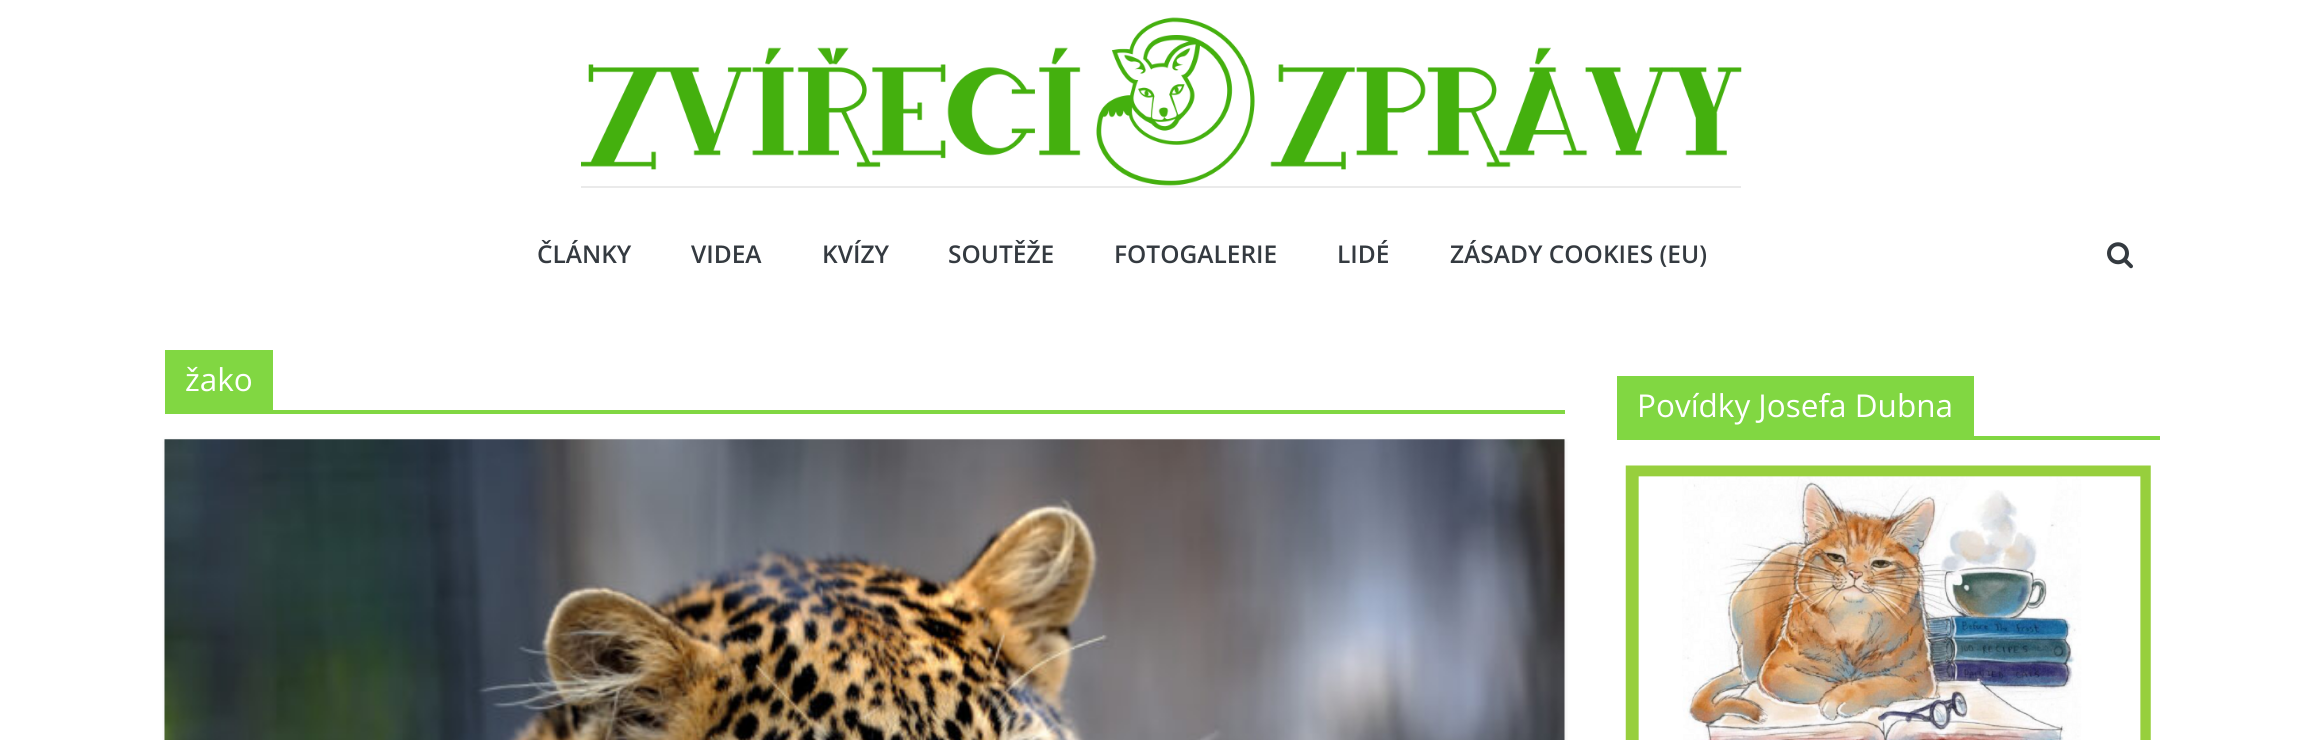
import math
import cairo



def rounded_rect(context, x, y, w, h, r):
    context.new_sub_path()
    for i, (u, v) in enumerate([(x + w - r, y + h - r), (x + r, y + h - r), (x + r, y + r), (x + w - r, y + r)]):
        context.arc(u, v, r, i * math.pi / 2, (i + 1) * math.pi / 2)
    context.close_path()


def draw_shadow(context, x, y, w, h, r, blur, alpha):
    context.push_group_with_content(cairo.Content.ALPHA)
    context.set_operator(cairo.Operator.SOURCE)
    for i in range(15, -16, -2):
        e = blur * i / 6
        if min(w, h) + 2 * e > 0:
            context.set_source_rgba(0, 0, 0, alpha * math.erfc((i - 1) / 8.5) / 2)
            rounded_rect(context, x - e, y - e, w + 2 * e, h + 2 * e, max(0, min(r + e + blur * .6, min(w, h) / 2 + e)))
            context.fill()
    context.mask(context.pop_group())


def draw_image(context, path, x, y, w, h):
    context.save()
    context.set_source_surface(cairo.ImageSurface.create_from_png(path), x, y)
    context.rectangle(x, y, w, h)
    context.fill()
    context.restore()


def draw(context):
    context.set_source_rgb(1, 1, 1)
    context.paint()
    draw_image(context, "images/1.png", 581, 17, 1161, 169)
    context.set_source_rgb(234 / 255, 234 / 255, 234 / 255)
    context.rectangle(581, 186, 1160, 2)
    context.fill()
    draw_image(context, "images/2.png", 2107, 242, 26, 27)
    context.set_source_rgb(129 / 255, 215 / 255, 66 / 255)
    context.rectangle(165, 410, 1400, 4)
    context.fill()
    context.rectangle(165, 350, 108, 60)
    context.fill()
    context.set_source_rgb(0, 0, 0)
    draw_shadow(context, 165, 441, 1400, 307, 0, 2.5, 0.1)
    draw_image(context, "images/3.png", 164, 439, 1401, 301)
    context.set_source_rgb(129 / 255, 215 / 255, 66 / 255)
    context.rectangle(1617, 436, 543, 4)
    context.fill()
    context.rectangle(1617, 376, 357, 60)
    context.fill()
    draw_image(context, "images/4.png", 1625, 465, 526, 275)
    context.select_font_face("Open Sans SemiBold")
    context.set_font_size(24.5)
    context.set_source_rgb(52 / 255, 58 / 255, 64 / 255)
    context.move_to(537, 263)
    context.show_text("ČLÁNKY")
    context.move_to(691, 263)
    context.show_text("VIDEA")
    context.move_to(822, 263)
    context.show_text("KVÍZY")
    context.move_to(948, 263)
    context.show_text("SOUTĚŽE")
    context.move_to(1114, 263)
    context.show_text("FOTOGALERIE")
    context.move_to(1337, 263)
    context.show_text("LIDÉ")
    context.move_to(1450, 263)
    context.show_text("ZÁSADY COOKIES (EU)")
    context.select_font_face("Open Sans")
    context.set_font_size(31.5)
    context.set_source_rgb(1, 1, 1)
    context.move_to(185, 391)
    context.show_text("žako")
    context.move_to(1637, 417)
    context.show_text("Povídky Josefa Dubna")


surface = cairo.ImageSurface(cairo.Format.RGB24, 2322, 740)
context = cairo.Context(surface)
options = cairo.FontOptions()
options.set_hint_metrics(cairo.HintMetrics.OFF)
options.set_hint_style(cairo.HintStyle.NONE)
context.set_font_options(options)
context.set_miter_limit(4)
draw(context)
surface.write_to_png("out.png")
